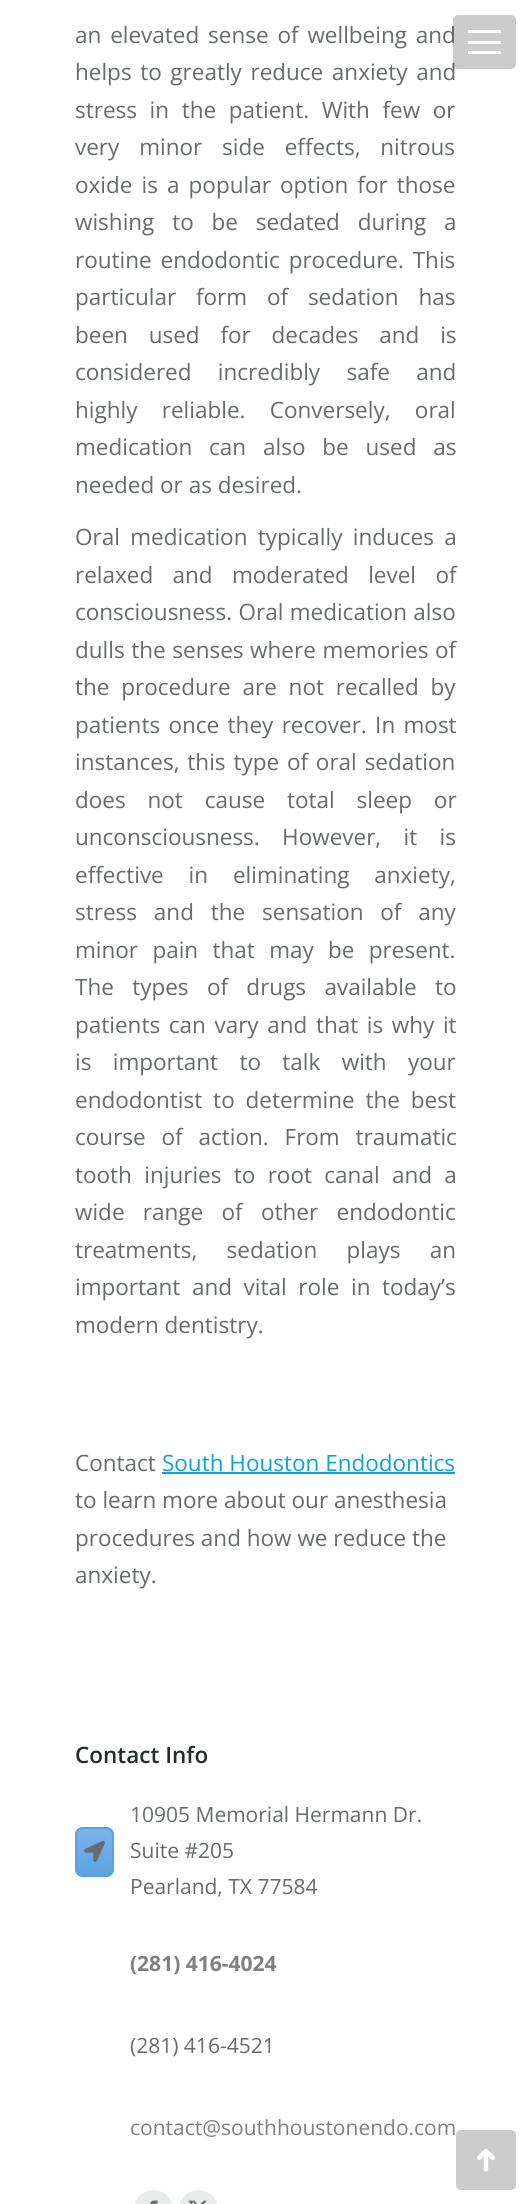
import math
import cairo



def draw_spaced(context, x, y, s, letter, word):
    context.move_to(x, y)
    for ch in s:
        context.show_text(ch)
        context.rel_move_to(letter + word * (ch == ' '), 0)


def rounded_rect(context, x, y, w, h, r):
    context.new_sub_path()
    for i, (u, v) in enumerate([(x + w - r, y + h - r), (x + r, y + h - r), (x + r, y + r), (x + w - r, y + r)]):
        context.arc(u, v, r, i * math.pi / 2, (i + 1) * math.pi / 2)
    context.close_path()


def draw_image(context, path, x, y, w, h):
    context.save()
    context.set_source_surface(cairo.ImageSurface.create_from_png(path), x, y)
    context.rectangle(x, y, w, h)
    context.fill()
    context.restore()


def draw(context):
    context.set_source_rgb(1, 1, 1)
    context.paint()
    context.set_source_rgb(12 / 255, 162 / 255, 224 / 255)
    context.rectangle(162, 1472, 293, 2)
    context.fill()
    context.set_source_rgb(90 / 255, 161 / 255, 227 / 255)
    rounded_rect(context, 75, 1827, 39, 50, 8)
    context.fill()
    context.save()
    rounded_rect(context, 75, 1827, 39, 50, 8)
    context.clip()
    gradient = cairo.LinearGradient(95, 1829, 95, 1875)
    gradient.add_color_stop_rgba(0, 1, 1, 1, 0.2)
    gradient.add_color_stop_rgba(1, 1, 1, 1, 0.01)
    context.set_source(gradient)
    context.rectangle(75, 1829, 39, 43)
    context.fill()
    context.restore()
    rounded_rect(context, 76, 1828, 37, 48, 7)
    context.stroke()
    draw_image(context, "images/1.png", 84, 1840, 21, 22)
    context.set_source_rgb(232 / 255, 233 / 255, 233 / 255)
    rounded_rect(context, 134, 2190, 39, 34, 19.5)
    context.fill()
    draw_image(context, "images/2.png", 150, 2200, 8, 4)
    rounded_rect(context, 179, 2190, 39, 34, 19.5)
    context.fill()
    draw_image(context, "images/3.png", 188, 2200, 19, 4)
    context.set_source_rgb(204 / 255, 204 / 255, 204 / 255)
    rounded_rect(context, 456, 2130, 60, 60, 5)
    context.fill()
    draw_image(context, "images/4.png", 477, 2148, 18, 24)
    context.select_font_face("Open Sans")
    context.set_font_size(22.5)
    context.set_source_rgb(103 / 255, 107 / 255, 109 / 255)
    draw_spaced(context, 75, 43, "an elevated sense of wellbeing and", 0, 3)
    draw_spaced(context, 75, 80, "helps to greatly reduce anxiety and", 0, 2.75)
    draw_spaced(context, 75, 118, "stress in the patient. With few or", 0, 6.75)
    draw_spaced(context, 75, 155, "very minor side effects, nitrous", 0, 14)
    draw_spaced(context, 75, 193, "oxide is a popular option for those", 0, 3.25)
    draw_spaced(context, 75, 230, "wishing to be sedated during a", 0, 12)
    draw_spaced(context, 75, 268, "routine endodontic procedure. This", 0, 3)
    draw_spaced(context, 75, 305, "particular form of sedation has", 0, 14)
    draw_spaced(context, 75, 343, "been used for decades and is", 0, 15)
    draw_spaced(context, 75, 380, "considered incredibly safe and", 0, 20.5)
    draw_spaced(context, 75, 418, "highly reliable. Conversely, oral", 0, 18.5)
    draw_spaced(context, 75, 455, "medication can also be used as", 0, 11)
    context.move_to(75, 493)
    context.show_text("needed or as desired.")
    draw_spaced(context, 75, 545, "Oral medication typically induces a", 0, 4.5)
    draw_spaced(context, 75, 583, "relaxed and moderated level of", 0, 13.5)
    draw_spaced(context, 75, 620, "consciousness. Oral medication also", 0, 0.5)
    draw_spaced(context, 75, 658, "dulls the senses where memories of", 0, 0.75)
    draw_spaced(context, 75, 695, "the procedure are not recalled by", 0, 6)
    draw_spaced(context, 75, 733, "patients once they recover. In most", 0, 2.5)
    draw_spaced(context, 75, 770, "instances, this type of oral sedation", 0, 2)
    draw_spaced(context, 75, 808, "does not cause total sleep or", 0, 16)
    draw_spaced(context, 75, 845, "unconsciousness. However, it is", 0, 16.5)
    draw_spaced(context, 75, 883, "effective in eliminating anxiety,", 0, 19)
    draw_spaced(context, 75, 920, "stress and the sensation of any", 0, 11)
    draw_spaced(context, 75, 958, "minor pain that may be present.", 0, 8.5)
    draw_spaced(context, 75, 995, "The types of drugs available to", 0, 12.5)
    draw_spaced(context, 75, 1033, "patients can vary and that is why it", 0, 2.75)
    draw_spaced(context, 75, 1070, "is important to talk with your", 0, 15.5)
    draw_spaced(context, 75, 1108, "endodontist to determine the best", 0, 5)
    draw_spaced(context, 75, 1145, "course of action. From traumatic", 0, 10)
    draw_spaced(context, 75, 1183, "tooth injuries to root canal and a", 0, 6.5)
    draw_spaced(context, 75, 1220, "wide range of other endodontic", 0, 12.5)
    draw_spaced(context, 75, 1258, "treatments, sedation plays an", 0, 23.5)
    draw_spaced(context, 75, 1295, "important and vital role in today’s", 0, 5.75)
    context.move_to(75, 1333)
    context.show_text("modern dentistry.")
    context.move_to(75, 1471)
    context.show_text("Contact")
    context.set_source_rgb(12 / 255, 162 / 255, 224 / 255)
    context.move_to(162, 1471)
    context.show_text("South Houston Endodontics")
    context.set_source_rgb(103 / 255, 107 / 255, 109 / 255)
    context.move_to(75, 1508)
    context.show_text("to learn more about our anesthesia")
    context.move_to(75, 1546)
    context.show_text("procedures and how we reduce the")
    context.move_to(75, 1583)
    context.show_text("anxiety.")
    context.select_font_face("Open Sans SemiBold")
    context.set_source_rgb(38 / 255, 43 / 255, 46 / 255)
    context.move_to(75, 1763)
    context.show_text("Contact Info")
    context.select_font_face("Open Sans")
    context.set_font_size(21)
    context.set_source_rgb(103 / 255, 107 / 255, 109 / 255)
    context.move_to(130, 1822)
    context.show_text("10905 Memorial Hermann Dr.")
    context.move_to(130, 1858)
    context.show_text("Suite #205")
    context.move_to(130, 1894)
    context.show_text("Pearland, TX 77584")
    context.select_font_face("Open Sans", cairo.FontSlant.NORMAL, cairo.FontWeight.BOLD)
    context.set_source_rgb(128 / 255, 128 / 255, 128 / 255)
    context.move_to(130, 1971)
    context.show_text("(281) 416-4024")
    context.select_font_face("Open Sans")
    context.set_source_rgb(103 / 255, 107 / 255, 109 / 255)
    context.move_to(130, 2053)
    context.show_text("(281) 416-4521")
    context.set_source_rgb(128 / 255, 128 / 255, 128 / 255)
    context.move_to(130, 2135)
    context.show_text("contact@southhoustonendo.com")
    context.set_source_rgba(0, 0, 0, 0.2)
    rounded_rect(context, 453, 15, 63, 54, 5)
    context.fill()
    context.set_source_rgb(1, 1, 1)
    context.rectangle(468, 30, 33, 3)
    context.fill()
    context.rectangle(468, 41, 33, 3)
    context.fill()
    context.rectangle(468, 51, 33, 3)
    context.fill()


surface = cairo.ImageSurface(cairo.Format.RGB24, 531, 2204)
context = cairo.Context(surface)
options = cairo.FontOptions()
options.set_hint_metrics(cairo.HintMetrics.OFF)
options.set_hint_style(cairo.HintStyle.NONE)
context.set_font_options(options)
context.set_miter_limit(4)
draw(context)
surface.write_to_png("out.png")
